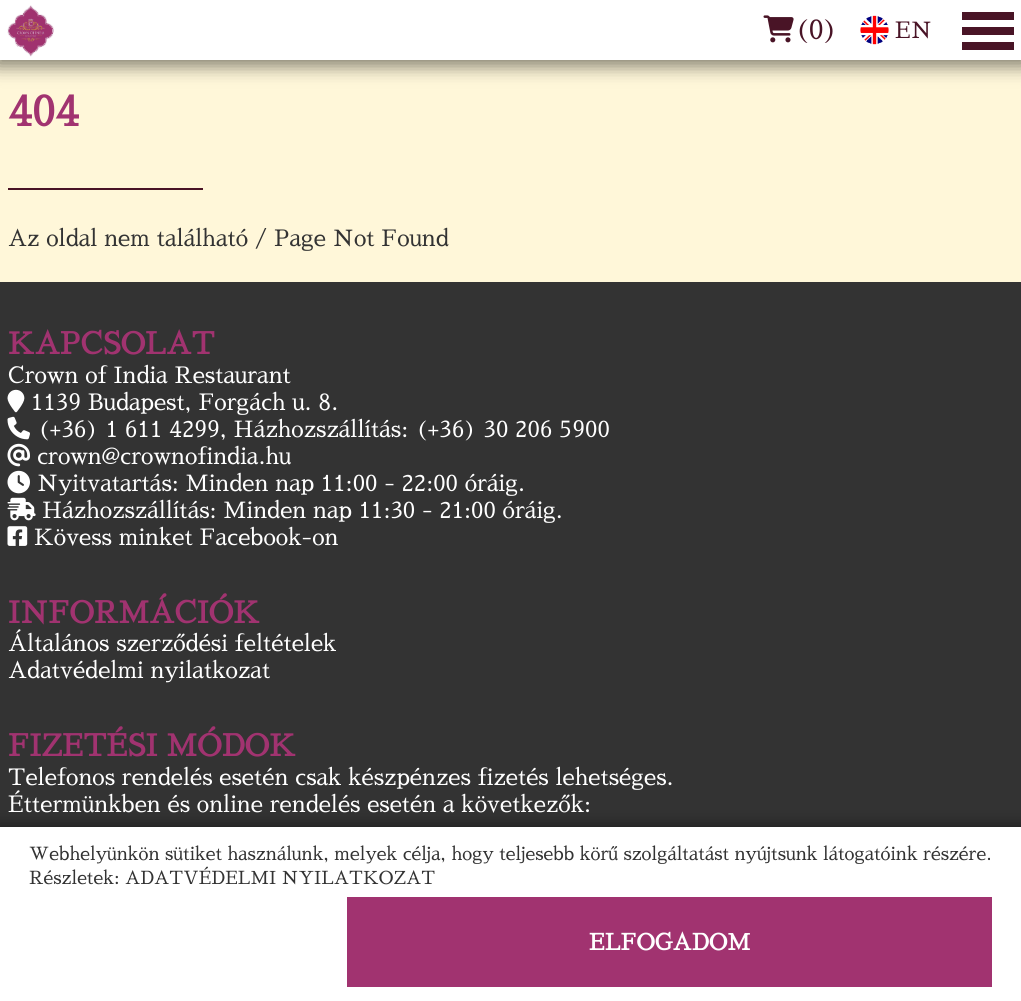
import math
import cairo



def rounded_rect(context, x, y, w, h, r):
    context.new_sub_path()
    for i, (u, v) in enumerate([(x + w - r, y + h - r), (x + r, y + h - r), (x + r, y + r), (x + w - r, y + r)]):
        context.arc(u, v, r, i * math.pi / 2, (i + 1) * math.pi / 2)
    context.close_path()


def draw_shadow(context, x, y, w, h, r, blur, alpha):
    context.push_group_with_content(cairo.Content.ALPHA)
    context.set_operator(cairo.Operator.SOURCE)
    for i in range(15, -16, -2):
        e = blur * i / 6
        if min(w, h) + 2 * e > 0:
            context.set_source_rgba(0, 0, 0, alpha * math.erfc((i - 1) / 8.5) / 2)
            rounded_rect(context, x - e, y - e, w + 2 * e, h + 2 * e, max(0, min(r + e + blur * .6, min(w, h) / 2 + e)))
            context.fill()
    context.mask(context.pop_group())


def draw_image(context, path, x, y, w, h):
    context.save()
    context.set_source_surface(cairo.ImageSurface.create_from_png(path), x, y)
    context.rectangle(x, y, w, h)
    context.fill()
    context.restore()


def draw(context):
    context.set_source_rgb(1, 247 / 255, 217 / 255)
    context.paint()
    context.set_source_rgb(0, 0, 0)
    draw_shadow(context, -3, 0, 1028, 66, 0, 9, 0.5)
    context.set_source_rgb(1, 1, 1)
    context.rectangle(0, 0, 1021, 60)
    context.fill()
    draw_image(context, "images/1.png", 7, 5, 47, 52)
    draw_image(context, "images/2.png", 763, 15, 31, 28)
    draw_image(context, "images/3.png", 860, 15, 29, 30)
    context.set_source_rgb(73 / 255, 20 / 255, 38 / 255)
    context.rectangle(962, 12, 52, 8)
    context.fill()
    context.rectangle(962, 27, 52, 8)
    context.fill()
    context.rectangle(962, 42, 52, 8)
    context.fill()
    context.rectangle(8, 188, 195, 2)
    context.fill()
    context.set_source_rgb(51 / 255, 51 / 255, 51 / 255)
    context.rectangle(0, 282, 1021, 545)
    context.fill()
    draw_image(context, "images/4.png", 7, 389, 18, 24)
    draw_image(context, "images/5.png", 7, 416, 23, 24)
    draw_image(context, "images/6.png", 7, 443, 23, 24)
    draw_image(context, "images/7.png", 7, 470, 23, 24)
    draw_image(context, "images/8.png", 7, 497, 29, 24)
    draw_image(context, "images/9.png", 7, 526, 21, 20)
    context.set_source_rgb(0, 0, 0)
    draw_shadow(context, -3, 827, 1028, 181, 0, 9, 0.5)
    context.set_source_rgb(1, 1, 1)
    context.rectangle(0, 827, 1021, 174)
    context.fill()
    context.set_source_rgb(161 / 255, 51 / 255, 112 / 255)
    context.rectangle(347, 897, 645, 90)
    context.fill()
    context.select_font_face("Sawarabi Mincho")
    context.set_font_size(27)
    context.set_source_rgb(73 / 255, 20 / 255, 38 / 255)
    context.move_to(794, 39)
    context.show_text("(0)")
    context.set_font_size(22.5)
    context.move_to(895, 38)
    context.show_text("EN")
    context.select_font_face("Sawarabi Mincho", cairo.FontSlant.NORMAL, cairo.FontWeight.BOLD)
    context.set_font_size(42)
    context.set_source_rgb(161 / 255, 51 / 255, 112 / 255)
    context.move_to(8, 126)
    context.show_text("404")
    context.select_font_face("Sawarabi Mincho")
    context.set_font_size(22.5)
    context.set_source_rgb(51 / 255, 51 / 255, 51 / 255)
    context.move_to(8, 246)
    context.show_text("Az oldal nem található / Page Not Found")
    context.select_font_face("Sawarabi Mincho", cairo.FontSlant.NORMAL, cairo.FontWeight.BOLD)
    context.set_font_size(30)
    context.set_source_rgb(161 / 255, 51 / 255, 112 / 255)
    context.move_to(8, 354)
    context.show_text("KAPCSOLAT")
    context.select_font_face("Sawarabi Mincho")
    context.set_font_size(22.5)
    context.set_source_rgb(1, 1, 1)
    context.move_to(8, 383)
    context.show_text("Crown of India Restaurant")
    context.move_to(31, 410)
    context.show_text("1139 Budapest, Forgách u. 8.")
    context.move_to(37, 437)
    context.show_text("(+36) 1 611 4299, Házhozszállítás: (+36) 30 206 5900")
    context.move_to(37, 464)
    context.show_text("crown@crownofindia.hu")
    context.move_to(37, 491)
    context.show_text("Nyitvatartás: Minden nap 11:00 - 22:00 óráig.")
    context.move_to(42, 518)
    context.show_text("Házhozszállítás: Minden nap 11:30 - 21:00 óráig.")
    context.move_to(34, 545)
    context.show_text("Kövess minket Facebook-on")
    context.select_font_face("Sawarabi Mincho", cairo.FontSlant.NORMAL, cairo.FontWeight.BOLD)
    context.set_font_size(30)
    context.set_source_rgb(161 / 255, 51 / 255, 112 / 255)
    context.move_to(8, 623)
    context.show_text("INFORMÁCIÓK")
    context.select_font_face("Sawarabi Mincho")
    context.set_font_size(22.5)
    context.set_source_rgb(1, 1, 1)
    context.move_to(8, 651)
    context.show_text("Általános szerződési feltételek")
    context.move_to(8, 678)
    context.show_text("Adatvédelmi nyilatkozat")
    context.select_font_face("Sawarabi Mincho", cairo.FontSlant.NORMAL, cairo.FontWeight.BOLD)
    context.set_font_size(30)
    context.set_source_rgb(161 / 255, 51 / 255, 112 / 255)
    context.move_to(8, 756)
    context.show_text("FIZETÉSI MÓDOK")
    context.select_font_face("Sawarabi Mincho")
    context.set_font_size(22.5)
    context.set_source_rgb(1, 1, 1)
    context.move_to(8, 785)
    context.show_text("Telefonos rendelés esetén csak készpénzes fizetés lehetséges.")
    context.move_to(8, 812)
    context.show_text("Éttermünkben és online rendelés esetén a következők:")
    context.set_font_size(18)
    context.set_source_rgb(51 / 255, 51 / 255, 51 / 255)
    context.move_to(29, 860)
    context.show_text("Webhelyünkön sütiket használunk, melyek célja, hogy teljesebb körű szolgáltatást nyújtsunk látogatóink részére.")
    context.move_to(29, 884)
    context.show_text("Részletek: ADATVÉDELMI NYILATKOZAT")
    context.select_font_face("Sawarabi Mincho", cairo.FontSlant.NORMAL, cairo.FontWeight.BOLD)
    context.set_font_size(22.5)
    context.set_source_rgb(1, 1, 1)
    context.move_to(589, 950)
    context.show_text("ELFOGADOM")


surface = cairo.ImageSurface(cairo.Format.RGB24, 1021, 1001)
context = cairo.Context(surface)
options = cairo.FontOptions()
options.set_hint_metrics(cairo.HintMetrics.OFF)
options.set_hint_style(cairo.HintStyle.NONE)
context.set_font_options(options)
context.set_miter_limit(4)
draw(context)
surface.write_to_png("out.png")
